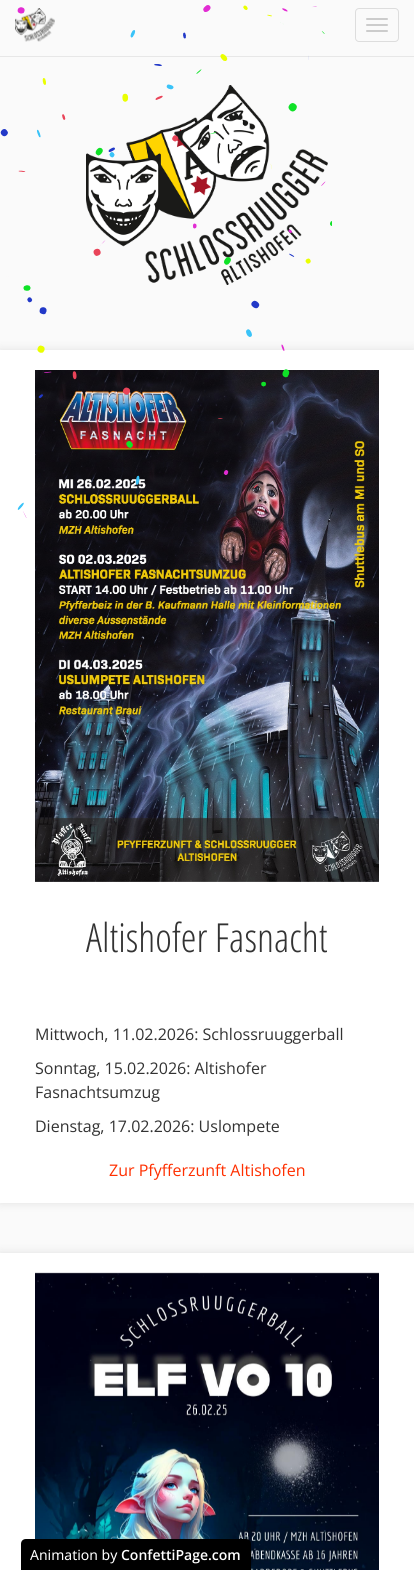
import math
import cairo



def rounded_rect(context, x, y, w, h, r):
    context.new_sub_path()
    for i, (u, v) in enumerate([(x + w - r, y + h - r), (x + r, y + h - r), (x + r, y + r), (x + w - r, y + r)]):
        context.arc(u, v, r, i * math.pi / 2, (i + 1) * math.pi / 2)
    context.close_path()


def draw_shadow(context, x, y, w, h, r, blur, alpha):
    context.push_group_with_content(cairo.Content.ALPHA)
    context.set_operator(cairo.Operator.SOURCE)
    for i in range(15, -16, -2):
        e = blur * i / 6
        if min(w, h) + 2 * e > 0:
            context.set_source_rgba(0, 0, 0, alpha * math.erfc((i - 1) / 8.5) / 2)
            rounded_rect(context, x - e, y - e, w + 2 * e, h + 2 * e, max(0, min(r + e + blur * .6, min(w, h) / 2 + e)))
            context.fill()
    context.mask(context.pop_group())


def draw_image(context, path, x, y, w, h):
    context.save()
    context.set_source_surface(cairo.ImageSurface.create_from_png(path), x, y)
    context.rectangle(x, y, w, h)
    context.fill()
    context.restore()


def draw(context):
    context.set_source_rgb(250 / 255, 250 / 255, 250 / 255)
    context.paint()
    context.set_source_rgb(231 / 255, 231 / 255, 231 / 255)
    context.rectangle(0, 56, 414, 1)
    context.fill()
    draw_image(context, "images/1.png", 15, 8, 40, 34)
    rounded_rect(context, 355.5, 8.5, 43, 33, 3.5)
    context.set_source_rgb(221 / 255, 221 / 255, 221 / 255)
    context.set_line_width(1)
    context.stroke()
    context.set_source_rgb(204 / 255, 204 / 255, 204 / 255)
    rounded_rect(context, 366, 18, 22, 2, 1)
    context.fill()
    rounded_rect(context, 366, 24, 22, 2, 1)
    context.fill()
    rounded_rect(context, 366, 30, 22, 2, 1)
    context.fill()
    draw_image(context, "images/2.png", 86, 85, 242, 200)
    context.set_source_rgb(0, 0, 0)
    draw_shadow(context, 0, 350, 414, 853, 0, 5, 0.1)
    context.set_source_rgb(1, 1, 1)
    context.rectangle(0, 350, 414, 853)
    context.fill()
    draw_image(context, "images/3.png", 35, 370, 344, 512)
    context.set_source_rgb(0, 0, 0)
    draw_shadow(context, 0, 1253, 414, 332, 0, 5, 0.1)
    context.set_source_rgb(1, 1, 1)
    context.rectangle(0, 1253, 414, 317)
    context.fill()
    draw_image(context, "images/4.png", 35, 1272, 344, 298)
    draw_image(context, "images/5.png", 0, 5, 332, 513)
    context.set_source_rgb(0, 0, 0)
    context.new_path()
    context.move_to(26, 1539)
    context.line_to(246, 1539)
    context.curve_to(249, 1539, 251, 1541, 251, 1544)
    context.line_to(251, 1570)
    context.line_to(21, 1570)
    context.line_to(21, 1544)
    context.curve_to(21, 1541, 23, 1539, 26, 1539)
    context.close_path()
    context.fill()
    context.select_font_face("Open Sans Condensed Light")
    context.set_font_size(40)
    context.set_source_rgb(51 / 255, 51 / 255, 51 / 255)
    context.move_to(86, 952)
    context.show_text("Altishofer Fasnacht")
    context.select_font_face("Open Sans")
    context.set_font_size(16)
    context.move_to(35, 1040)
    context.show_text("Mittwoch, 11.02.2026: Schlossruuggerball")
    context.move_to(35, 1074)
    context.show_text("Sonntag, 15.02.2026: Altishofer")
    context.move_to(35, 1098)
    context.show_text("Fasnachtsumzug")
    context.move_to(35, 1132)
    context.show_text("Dienstag, 17.02.2026: Uslompete")
    context.set_source_rgb(1, 47 / 255, 0)
    context.move_to(109, 1176)
    context.show_text("Zur Pfyfferzunft Altishofen")
    context.select_font_face("Noto Sans")
    context.set_font_size(14)
    context.set_source_rgb(1, 1, 1)
    context.move_to(30, 1560)
    context.show_text("Animation by")
    context.select_font_face("Open Sans SemiBold")
    context.move_to(121, 1560)
    context.show_text("ConfettiPage.com")


surface = cairo.ImageSurface(cairo.Format.RGB24, 414, 1570)
context = cairo.Context(surface)
options = cairo.FontOptions()
options.set_hint_metrics(cairo.HintMetrics.OFF)
options.set_hint_style(cairo.HintStyle.NONE)
context.set_font_options(options)
context.set_miter_limit(4)
draw(context)
surface.write_to_png("out.png")
